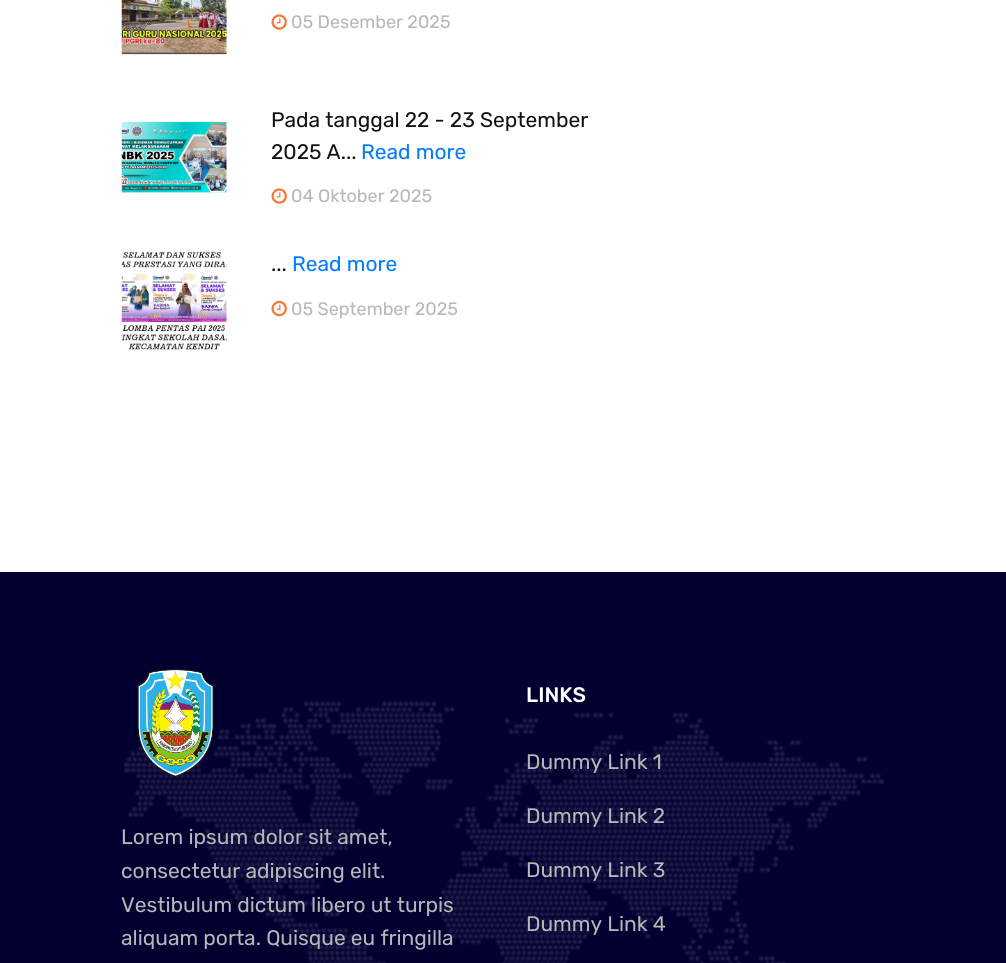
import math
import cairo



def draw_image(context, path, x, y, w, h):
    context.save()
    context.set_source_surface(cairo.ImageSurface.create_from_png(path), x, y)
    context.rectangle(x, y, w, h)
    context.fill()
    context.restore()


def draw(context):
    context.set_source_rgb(1, 1, 1)
    context.paint()
    draw_image(context, "images/1.png", 121, 0, 106, 55)
    draw_image(context, "images/2.png", 271, 14, 16, 16)
    draw_image(context, "images/3.png", 121, 121, 106, 72)
    draw_image(context, "images/2.png", 271, 188, 16, 16)
    draw_image(context, "images/4.png", 121, 251, 106, 99)
    draw_image(context, "images/5.png", 271, 300, 16, 17)
    context.set_source_rgb(2 / 255, 0, 49 / 255)
    context.rectangle(0, 572, 1006, 391)
    context.fill()
    draw_image(context, "images/6.png", 124, 700, 760, 263)
    draw_image(context, "images/7.png", 137, 669, 77, 108)
    context.select_font_face("Rubik")
    context.set_font_size(18)
    context.set_source_rgb(183 / 255, 183 / 255, 183 / 255)
    context.move_to(291, 28)
    context.show_text("05 Desember 2025")
    context.set_font_size(21)
    context.set_source_rgb(17 / 255, 17 / 255, 17 / 255)
    context.move_to(271, 127)
    context.show_text("Pada tanggal 22 - 23 September")
    context.move_to(271, 159)
    context.show_text("2025 A...")
    context.set_source_rgb(0, 123 / 255, 1)
    context.move_to(361, 159)
    context.show_text("Read more")
    context.set_font_size(18)
    context.set_source_rgb(183 / 255, 183 / 255, 183 / 255)
    context.move_to(291, 202)
    context.show_text("04 Oktober 2025")
    context.set_font_size(21)
    context.set_source_rgb(17 / 255, 17 / 255, 17 / 255)
    context.move_to(271, 271)
    context.show_text("...")
    context.set_source_rgb(0, 123 / 255, 1)
    context.move_to(292, 271)
    context.show_text("Read more")
    context.set_font_size(18)
    context.set_source_rgb(183 / 255, 183 / 255, 183 / 255)
    context.move_to(291, 315)
    context.show_text("05 September 2025")
    context.set_font_size(21)
    context.move_to(121, 844)
    context.show_text("Lorem ipsum dolor sit amet,")
    context.move_to(121, 878)
    context.show_text("consectetur adipiscing elit.")
    context.move_to(121, 912)
    context.show_text("Vestibulum dictum libero ut turpis")
    context.move_to(121, 945)
    context.show_text("aliquam porta. Quisque eu fringilla")
    context.select_font_face("Rubik Medium")
    context.set_source_rgb(1, 1, 1)
    context.move_to(526, 702)
    context.show_text("LINKS")
    context.select_font_face("Rubik")
    context.set_source_rgb(183 / 255, 183 / 255, 183 / 255)
    context.move_to(526, 769)
    context.show_text("Dummy Link 1")
    context.move_to(526, 823)
    context.show_text("Dummy Link 2")
    context.move_to(526, 877)
    context.show_text("Dummy Link 3")
    context.move_to(526, 931)
    context.show_text("Dummy Link 4")


surface = cairo.ImageSurface(cairo.Format.RGB24, 1006, 963)
context = cairo.Context(surface)
options = cairo.FontOptions()
options.set_hint_metrics(cairo.HintMetrics.OFF)
options.set_hint_style(cairo.HintStyle.NONE)
context.set_font_options(options)
context.set_miter_limit(4)
draw(context)
surface.write_to_png("out.png")
